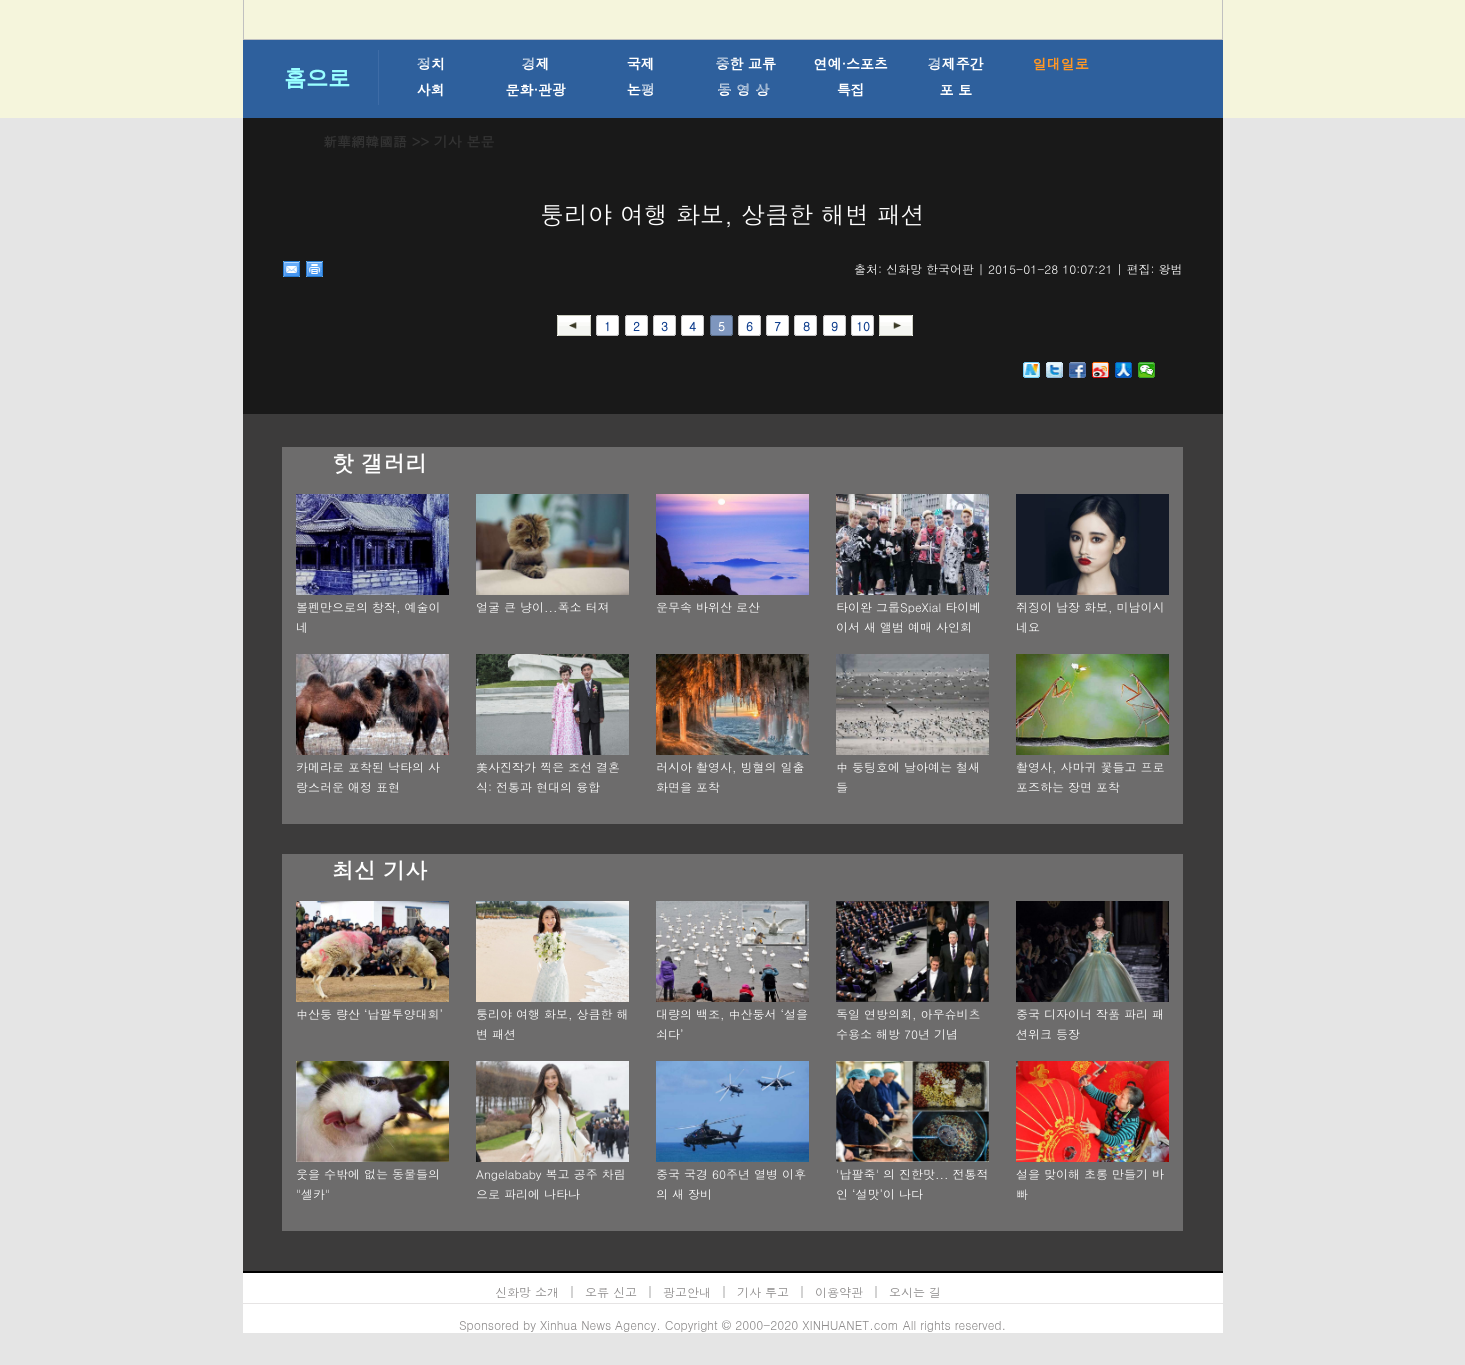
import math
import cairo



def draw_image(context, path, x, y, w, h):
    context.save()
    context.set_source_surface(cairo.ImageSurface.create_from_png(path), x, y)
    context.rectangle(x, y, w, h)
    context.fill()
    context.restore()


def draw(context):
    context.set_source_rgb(229 / 255, 229 / 255, 229 / 255)
    context.paint()
    draw_image(context, "images/1.png", 0, 0, 1465, 118)
    context.set_source_rgb(25 / 255, 25 / 255, 25 / 255)
    context.rectangle(243, 118, 980, 296)
    context.fill()
    draw_image(context, "images/2.png", 283, 261, 17, 16)
    draw_image(context, "images/3.png", 306, 261, 17, 16)
    draw_image(context, "images/4.png", 557, 315, 34, 21)
    draw_image(context, "images/5.png", 596, 315, 23, 21)
    draw_image(context, "images/5.png", 625, 315, 23, 21)
    draw_image(context, "images/5.png", 653, 315, 23, 21)
    draw_image(context, "images/5.png", 681, 315, 23, 21)
    draw_image(context, "images/6.png", 710, 315, 23, 21)
    draw_image(context, "images/5.png", 738, 315, 23, 21)
    draw_image(context, "images/5.png", 766, 315, 23, 21)
    draw_image(context, "images/5.png", 794, 315, 23, 21)
    draw_image(context, "images/5.png", 823, 315, 23, 21)
    draw_image(context, "images/5.png", 851, 315, 23, 21)
    draw_image(context, "images/7.png", 879, 315, 34, 21)
    draw_image(context, "images/8.png", 1023, 362, 17, 16)
    draw_image(context, "images/9.png", 1046, 362, 17, 16)
    draw_image(context, "images/10.png", 1069, 362, 17, 16)
    draw_image(context, "images/11.png", 1092, 362, 17, 16)
    draw_image(context, "images/12.png", 1115, 362, 17, 16)
    draw_image(context, "images/13.png", 1138, 362, 17, 16)
    context.set_source_rgb(60 / 255, 59 / 255, 59 / 255)
    context.rectangle(243, 414, 980, 857)
    context.fill()
    context.set_source_rgb(109 / 255, 108 / 255, 108 / 255)
    context.rectangle(282, 447, 901, 377)
    context.fill()
    draw_image(context, "images/14.png", 296, 494, 153, 101)
    draw_image(context, "images/15.png", 476, 494, 153, 101)
    draw_image(context, "images/16.png", 656, 494, 153, 101)
    draw_image(context, "images/17.png", 836, 494, 153, 101)
    draw_image(context, "images/18.png", 1016, 494, 153, 101)
    draw_image(context, "images/19.png", 296, 654, 153, 101)
    draw_image(context, "images/20.png", 476, 654, 153, 101)
    draw_image(context, "images/21.png", 656, 654, 153, 101)
    draw_image(context, "images/22.png", 836, 654, 153, 101)
    draw_image(context, "images/23.png", 1016, 654, 153, 101)
    context.rectangle(282, 854, 901, 377)
    context.fill()
    draw_image(context, "images/24.png", 296, 901, 153, 101)
    draw_image(context, "images/25.png", 476, 901, 153, 101)
    draw_image(context, "images/26.png", 656, 901, 153, 101)
    draw_image(context, "images/27.png", 836, 901, 153, 101)
    draw_image(context, "images/28.png", 1016, 901, 153, 101)
    draw_image(context, "images/29.png", 296, 1061, 153, 101)
    draw_image(context, "images/30.png", 476, 1061, 153, 101)
    draw_image(context, "images/31.png", 656, 1061, 153, 101)
    draw_image(context, "images/32.png", 836, 1061, 153, 101)
    draw_image(context, "images/33.png", 1016, 1061, 153, 101)
    draw_image(context, "images/34.png", 243, 1271, 980, 62)
    context.select_font_face("Dotum", cairo.FontSlant.NORMAL, cairo.FontWeight.BOLD)
    context.set_font_size(14)
    context.set_source_rgb(51 / 255, 51 / 255, 51 / 255)
    context.move_to(323, 147)
    context.show_text("新華網韓國語 >> 기사 본문")
    context.select_font_face("Dotum")
    context.set_font_size(24)
    context.set_source_rgb(1, 1, 1)
    context.move_to(540, 224)
    context.show_text("퉁리야 여행 화보, 상큼한 해변 패션")
    context.set_font_size(12)
    context.move_to(854, 274)
    context.show_text("출처: 신화망 한국어판 | 2015-01-28 10:07:21 | 편집: 왕범")
    context.select_font_face("Gulim", cairo.FontSlant.NORMAL, cairo.FontWeight.BOLD)
    context.set_source_rgb(11 / 255, 59 / 255, 140 / 255)
    context.move_to(604, 331)
    context.show_text("1")
    context.move_to(633, 331)
    context.show_text("2")
    context.move_to(661, 331)
    context.show_text("3")
    context.move_to(689, 331)
    context.show_text("4")
    context.set_source_rgb(1, 1, 1)
    context.move_to(718, 331)
    context.show_text("5")
    context.set_source_rgb(11 / 255, 59 / 255, 140 / 255)
    context.move_to(746, 331)
    context.show_text("6")
    context.move_to(774, 331)
    context.show_text("7")
    context.move_to(803, 331)
    context.show_text("8")
    context.move_to(831, 331)
    context.show_text("9")
    context.move_to(856, 331)
    context.show_text("10")
    context.select_font_face("Dotum", cairo.FontSlant.NORMAL, cairo.FontWeight.BOLD)
    context.set_font_size(22)
    context.set_source_rgb(1, 1, 1)
    context.move_to(332, 472)
    context.show_text("핫 갤러리")
    context.select_font_face("Dotum")
    context.set_font_size(12)
    context.move_to(296, 612)
    context.show_text("볼펜만으로의 창작, 예술이")
    context.move_to(296, 632)
    context.show_text("네")
    context.move_to(476, 612)
    context.show_text("얼굴 큰 냥이...폭소 터져")
    context.move_to(656, 612)
    context.show_text("운무속 바위산 로산")
    context.move_to(836, 612)
    context.show_text("타이완 그룹SpeXial 타이베")
    context.move_to(836, 632)
    context.show_text("이서 새 앨범 예매 사인회")
    context.move_to(1016, 612)
    context.show_text("쥐징이 남장 화보, 미남이시")
    context.move_to(1016, 632)
    context.show_text("네요")
    context.move_to(296, 772)
    context.show_text("카메라로 포착된 낙타의 사")
    context.move_to(296, 792)
    context.show_text("랑스러운 애정 표현")
    context.move_to(476, 772)
    context.show_text("美사진작가 찍은 조선 결혼")
    context.move_to(476, 792)
    context.show_text("식: 전통과 현대의 융합")
    context.move_to(656, 772)
    context.show_text("러시아 촬영사, 빙혈의 일출")
    context.move_to(656, 792)
    context.show_text("화면을 포착")
    context.move_to(836, 772)
    context.show_text("中 둥팅호에 날아예는 철새")
    context.move_to(836, 792)
    context.show_text("들")
    context.move_to(1016, 772)
    context.show_text("촬영사, 사마귀 꽃들고 프로")
    context.move_to(1016, 792)
    context.show_text("포즈하는 장면 포착")
    context.select_font_face("Dotum", cairo.FontSlant.NORMAL, cairo.FontWeight.BOLD)
    context.set_font_size(22)
    context.move_to(332, 879)
    context.show_text("최신 기사")
    context.select_font_face("Dotum")
    context.set_font_size(12)
    context.move_to(296, 1019)
    context.show_text("中산둥 량산 ‘납팔투양대회’")
    context.move_to(476, 1019)
    context.show_text("퉁리야 여행 화보, 상큼한 해")
    context.move_to(476, 1039)
    context.show_text("변 패션")
    context.move_to(656, 1019)
    context.show_text("대량의 백조, 中산둥서 ‘설을")
    context.move_to(656, 1039)
    context.show_text("쇠다’")
    context.move_to(836, 1019)
    context.show_text("독일 연방의회, 아우슈비츠")
    context.move_to(836, 1039)
    context.show_text("수용소 해방 70년 기념")
    context.move_to(1016, 1019)
    context.show_text("중국 디자이너 작품 파리 패")
    context.move_to(1016, 1039)
    context.show_text("션위크 등장")
    context.move_to(296, 1179)
    context.show_text("웃을 수밖에 없는 동물들의")
    context.move_to(296, 1199)
    context.show_text("\"셀카\"")
    context.move_to(476, 1179)
    context.show_text("Angelababy 복고 공주 차림")
    context.move_to(476, 1199)
    context.show_text("으로 파리에 나타나")
    context.move_to(656, 1179)
    context.show_text("중국 국경 60주년 열병 이후")
    context.move_to(656, 1199)
    context.show_text("의 새 장비")
    context.move_to(836, 1179)
    context.show_text("'납팔죽' 의 진한맛... 전통적")
    context.move_to(836, 1199)
    context.show_text("인 ‘설맛’이 나다")
    context.move_to(1016, 1179)
    context.show_text("설을 맞이해 초롱 만들기 바")
    context.move_to(1016, 1199)
    context.show_text("빠")


surface = cairo.ImageSurface(cairo.Format.RGB24, 1465, 1365)
context = cairo.Context(surface)
options = cairo.FontOptions()
options.set_hint_metrics(cairo.HintMetrics.OFF)
options.set_hint_style(cairo.HintStyle.NONE)
context.set_font_options(options)
context.set_miter_limit(4)
draw(context)
surface.write_to_png("out.png")
